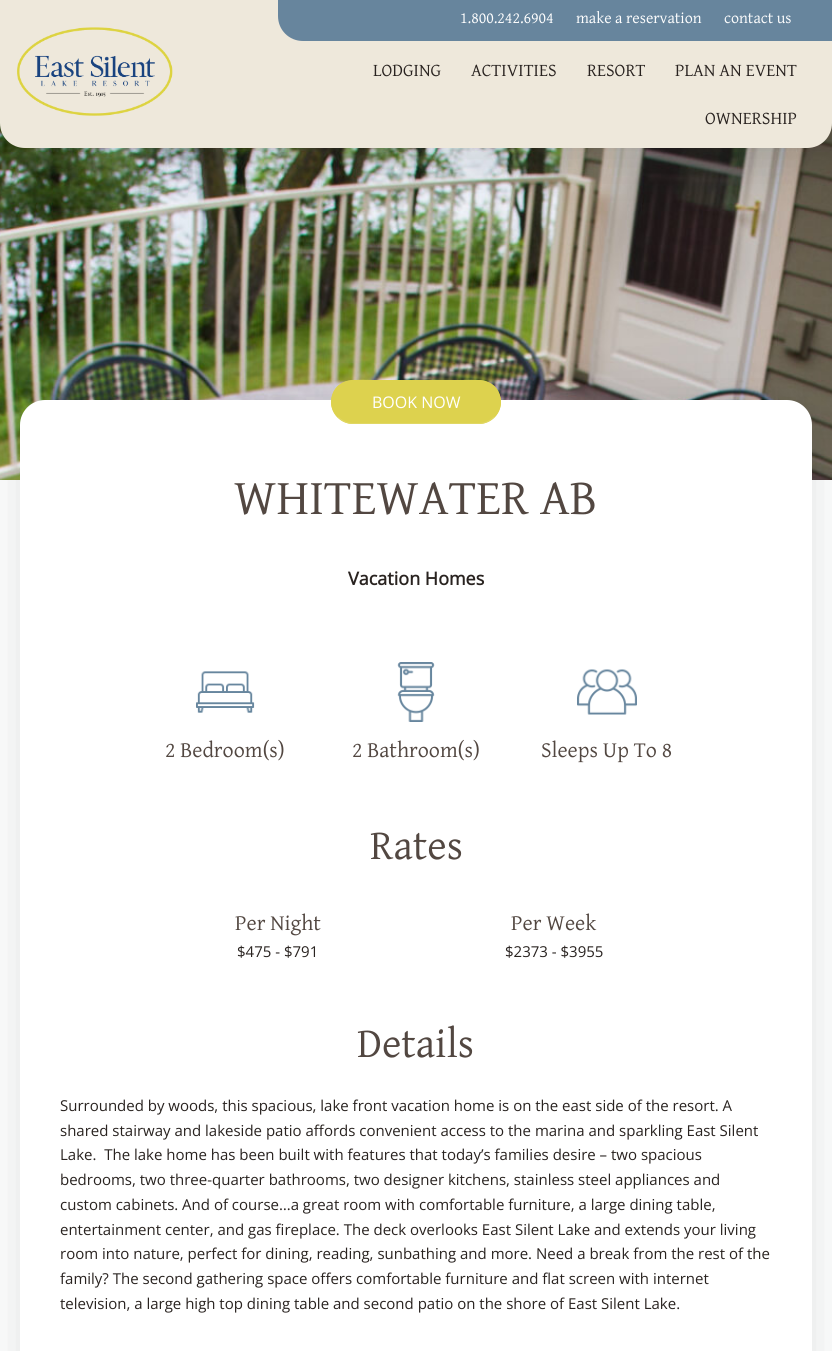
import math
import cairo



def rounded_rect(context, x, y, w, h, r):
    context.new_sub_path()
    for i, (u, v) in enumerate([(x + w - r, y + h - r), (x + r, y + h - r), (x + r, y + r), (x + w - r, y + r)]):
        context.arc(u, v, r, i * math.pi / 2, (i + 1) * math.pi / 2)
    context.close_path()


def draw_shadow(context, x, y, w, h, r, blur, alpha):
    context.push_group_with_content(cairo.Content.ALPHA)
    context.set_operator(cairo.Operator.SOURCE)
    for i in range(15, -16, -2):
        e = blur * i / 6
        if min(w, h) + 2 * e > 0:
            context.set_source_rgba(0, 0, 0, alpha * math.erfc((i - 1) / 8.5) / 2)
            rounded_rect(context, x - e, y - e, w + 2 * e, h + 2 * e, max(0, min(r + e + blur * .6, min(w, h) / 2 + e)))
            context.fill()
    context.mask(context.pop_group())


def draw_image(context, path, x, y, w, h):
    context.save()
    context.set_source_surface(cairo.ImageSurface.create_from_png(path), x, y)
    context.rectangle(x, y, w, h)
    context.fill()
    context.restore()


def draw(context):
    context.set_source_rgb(1, 1, 1)
    context.paint()
    draw_image(context, "images/2.png", 0, 123, 832, 357)
    context.set_source_rgb(38 / 255, 50 / 255, 56 / 255)
    draw_shadow(context, 0, 7, 832, 148, 25, 25, 0.15)
    context.set_source_rgb(238 / 255, 232 / 255, 219 / 255)
    context.new_path()
    context.move_to(0, 0)
    context.line_to(832, 0)
    context.line_to(832, 123)
    context.curve_to(832, 137, 821, 148, 807, 148)
    context.line_to(25, 148)
    context.curve_to(11, 148, 0, 137, 0, 123)
    context.close_path()
    context.fill()
    draw_image(context, "images/1.png", 17, 27, 156, 89)
    context.set_source_rgb(103 / 255, 133 / 255, 157 / 255)
    context.new_path()
    context.move_to(278, 0)
    context.line_to(832, 0)
    context.line_to(832, 41)
    context.line_to(303, 41)
    context.curve_to(289, 41, 278, 30, 278, 16)
    context.close_path()
    context.fill()
    context.set_source_rgb(38 / 255, 50 / 255, 56 / 255)
    draw_shadow(context, 20, 407, 792, 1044, 25, 25, 0.15)
    context.set_source_rgb(1, 1, 1)
    rounded_rect(context, 20, 400, 792, 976, 25)
    context.fill()
    context.set_source_rgb(221 / 255, 210 / 255, 78 / 255)
    rounded_rect(context, 331, 380, 170, 44, 22)
    context.fill()
    context.new_path()
    context.move_to(494, 417)
    context.curve_to(490, 421, 484.5, 423.5, 479, 423.5)
    context.line_to(353, 423.5)
    context.curve_to(347.5, 423.5, 342, 421, 338, 417)
    context.set_source_rgb(224 / 255, 215 / 255, 100 / 255)
    context.set_line_width(1)
    context.stroke()
    context.new_path()
    context.move_to(338, 417)
    context.curve_to(333, 412, 330.5, 405, 332, 398)
    context.curve_to(336, 377, 358, 380.5, 374, 380.5)
    context.line_to(458, 380.5)
    context.curve_to(474, 380.5, 496, 377, 500, 398)
    context.curve_to(501.5, 405, 499, 412, 494, 417)
    context.set_source_rgb(221 / 255, 210 / 255, 78 / 255)
    context.stroke()
    draw_image(context, "images/3.png", 196, 671, 59, 42)
    draw_image(context, "images/4.png", 397, 662, 38, 60)
    draw_image(context, "images/5.png", 577, 669, 60, 46)
    context.select_font_face("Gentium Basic")
    context.set_font_size(16)
    context.set_source_rgb(1, 1, 1)
    context.move_to(460, 23)
    context.show_text("1.800.242.6904")
    context.move_to(576, 23)
    context.show_text("make a reservation")
    context.move_to(724, 23)
    context.show_text("contact us")
    context.set_font_size(18)
    context.set_source_rgb(41 / 255, 35 / 255, 32 / 255)
    context.move_to(373, 76)
    context.show_text("LODGING")
    context.move_to(471, 76)
    context.show_text("ACTIVITIES")
    context.move_to(587, 76)
    context.show_text("RESORT")
    context.move_to(675, 76)
    context.show_text("PLAN AN EVENT")
    context.move_to(705, 124)
    context.show_text("OWNERSHIP")
    context.select_font_face("Open Sans")
    context.set_font_size(16)
    context.set_source_rgb(1, 1, 1)
    context.move_to(372, 408)
    context.show_text("BOOK NOW")
    context.select_font_face("Gentium Basic")
    context.set_font_size(50)
    context.set_source_rgb(82 / 255, 71 / 255, 65 / 255)
    context.move_to(234, 514)
    context.show_text("WHITEWATER AB")
    context.select_font_face("Open Sans", cairo.FontSlant.NORMAL, cairo.FontWeight.BOLD)
    context.set_font_size(18)
    context.set_source_rgb(41 / 255, 35 / 255, 32 / 255)
    context.move_to(348, 585)
    context.show_text("Vacation Homes")
    context.select_font_face("Gentium Basic")
    context.set_font_size(22)
    context.set_source_rgb(82 / 255, 71 / 255, 65 / 255)
    context.move_to(165, 757)
    context.show_text("2 Bedroom(s)")
    context.move_to(352, 757)
    context.show_text("2 Bathroom(s)")
    context.move_to(541, 757)
    context.show_text("Sleeps Up To 8")
    context.set_font_size(42)
    context.move_to(370, 859)
    context.show_text("Rates")
    context.set_font_size(22)
    context.move_to(235, 930)
    context.show_text("Per Night")
    context.select_font_face("Open Sans")
    context.set_font_size(15)
    context.set_source_rgb(41 / 255, 35 / 255, 32 / 255)
    context.move_to(237, 957)
    context.show_text("$475 - $791")
    context.select_font_face("Gentium Basic")
    context.set_font_size(22)
    context.set_source_rgb(82 / 255, 71 / 255, 65 / 255)
    context.move_to(511, 930)
    context.show_text("Per Week")
    context.select_font_face("Open Sans")
    context.set_font_size(15)
    context.set_source_rgb(41 / 255, 35 / 255, 32 / 255)
    context.move_to(505, 957)
    context.show_text("$2373 - $3955")
    context.select_font_face("Gentium Basic")
    context.set_font_size(42)
    context.set_source_rgb(82 / 255, 71 / 255, 65 / 255)
    context.move_to(357, 1057)
    context.show_text("Details")
    context.select_font_face("Open Sans")
    context.set_font_size(15)
    context.set_source_rgb(41 / 255, 35 / 255, 32 / 255)
    context.move_to(60, 1111)
    context.show_text("Surrounded by woods, this spacious, lake front vacation home is on the east side of the resort. A")
    context.move_to(60, 1136)
    context.show_text("shared stairway and lakeside patio affords convenient access to the marina and sparkling East Silent")
    context.move_to(60, 1160)
    context.show_text("Lake.  The lake home has been built with features that today’s families desire – two spacious")
    context.move_to(60, 1185)
    context.show_text("bedrooms, two three-quarter bathrooms, two designer kitchens, stainless steel appliances and")
    context.move_to(60, 1210)
    context.show_text("custom cabinets. And of course…a great room with comfortable furniture, a large dining table,")
    context.move_to(60, 1235)
    context.show_text("entertainment center, and gas fireplace. The deck overlooks East Silent Lake and extends your living")
    context.move_to(60, 1259)
    context.show_text("room into nature, perfect for dining, reading, sunbathing and more. Need a break from the rest of the")
    context.move_to(60, 1284)
    context.show_text("family? The second gathering space offers comfortable furniture and flat screen with internet")
    context.move_to(60, 1309)
    context.show_text("television, a large high top dining table and second patio on the shore of East Silent Lake.")


surface = cairo.ImageSurface(cairo.Format.RGB24, 832, 1351)
context = cairo.Context(surface)
options = cairo.FontOptions()
options.set_hint_metrics(cairo.HintMetrics.OFF)
options.set_hint_style(cairo.HintStyle.NONE)
context.set_font_options(options)
context.set_miter_limit(4)
draw(context)
surface.write_to_png("out.png")
